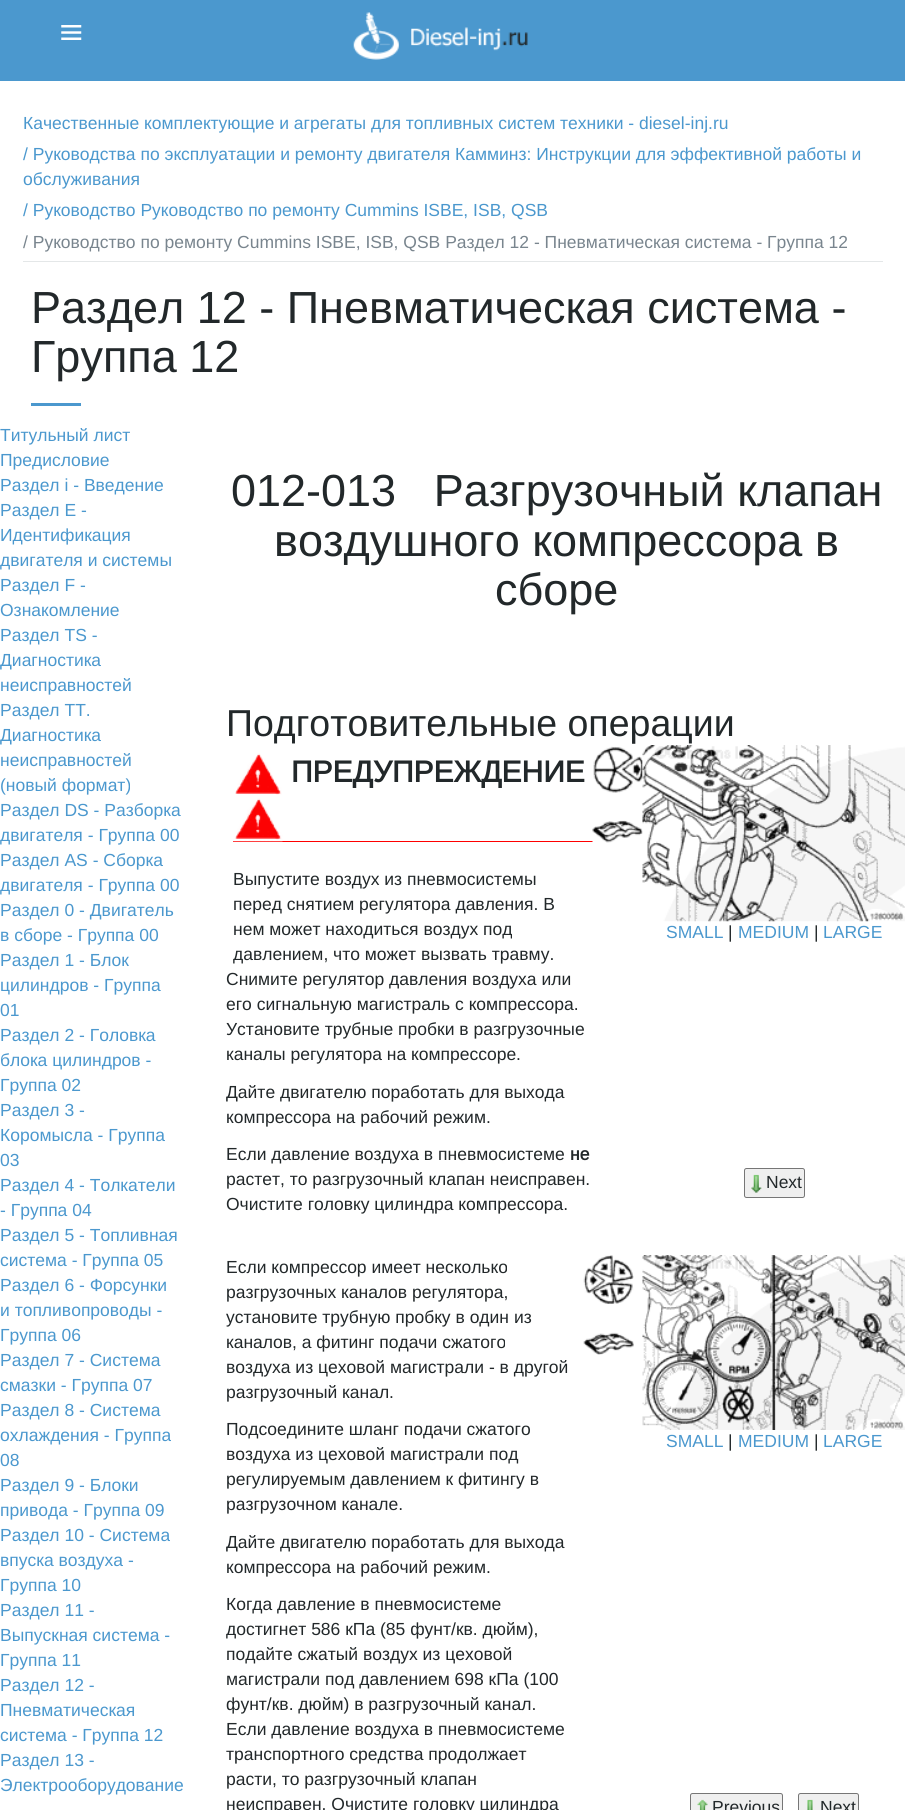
import math
import cairo



def rounded_rect(context, x, y, w, h, r):
    context.new_sub_path()
    for i, (u, v) in enumerate([(x + w - r, y + h - r), (x + r, y + h - r), (x + r, y + r), (x + w - r, y + r)]):
        context.arc(u, v, r, i * math.pi / 2, (i + 1) * math.pi / 2)
    context.close_path()


def draw_image(context, path, x, y, w, h):
    context.save()
    context.set_source_surface(cairo.ImageSurface.create_from_png(path), x, y)
    context.rectangle(x, y, w, h)
    context.fill()
    context.restore()


def draw(context):
    context.set_source_rgb(1, 1, 1)
    context.paint()
    context.set_source_rgb(75 / 255, 152 / 255, 206 / 255)
    context.rectangle(0, 0, 905, 81)
    context.fill()
    draw_image(context, "images/1.png", 61, 25, 21, 15)
    draw_image(context, "images/2.png", 353, 12, 175, 48)
    context.set_source_rgb(228 / 255, 231 / 255, 232 / 255)
    context.rectangle(23, 261, 860, 1)
    context.fill()
    context.set_source_rgb(75 / 255, 152 / 255, 206 / 255)
    context.rectangle(31, 403, 50, 3)
    context.fill()
    context.set_source_rgb(1, 0, 0)
    context.rectangle(233, 841, 360, 1)
    context.fill()
    draw_image(context, "images/3.png", 235, 753, 47, 42)
    draw_image(context, "images/4.png", 233, 798, 50, 44)
    draw_image(context, "images/5.png", 593, 746, 50, 47)
    draw_image(context, "images/6.png", 592, 820, 51, 23)
    draw_image(context, "images/7.png", 642, 745, 263, 177)
    context.set_source_rgb(239 / 255, 239 / 255, 239 / 255)
    rounded_rect(context, 744.5, 1168.5, 60, 29, 2)
    context.fill_preserve()
    context.set_source_rgb(118 / 255, 118 / 255, 118 / 255)
    context.set_line_width(1)
    context.stroke()
    draw_image(context, "images/8.png", 751, 1174, 11, 19)
    draw_image(context, "images/9.png", 583, 1255, 51, 49)
    draw_image(context, "images/10.png", 583, 1332, 51, 23)
    draw_image(context, "images/11.png", 642, 1255, 263, 175)
    context.set_source_rgb(239 / 255, 239 / 255, 239 / 255)
    rounded_rect(context, 690.5, 1793.5, 92, 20, 2)
    context.fill_preserve()
    context.set_source_rgb(118 / 255, 118 / 255, 118 / 255)
    context.stroke()
    draw_image(context, "images/12.png", 697, 1799, 11, 11)
    context.set_source_rgb(239 / 255, 239 / 255, 239 / 255)
    rounded_rect(context, 798.5, 1793.5, 60, 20, 2)
    context.fill_preserve()
    context.set_source_rgb(118 / 255, 118 / 255, 118 / 255)
    context.stroke()
    draw_image(context, "images/13.png", 807, 1799, 6, 11)
    context.select_font_face("Arimo")
    context.set_font_size(17.5)
    context.set_source_rgb(75 / 255, 152 / 255, 206 / 255)
    context.move_to(23, 129)
    context.show_text("Качественные комплектующие и агрегаты для топливных систем техники - diesel-inj.ru")
    context.move_to(23, 160)
    context.show_text("/ Руководства по эксплуатации и ремонту двигателя Камминз: Инструкции для эффективной работы и")
    context.move_to(23, 185)
    context.show_text("обслуживания")
    context.move_to(23, 216)
    context.show_text("/ Руководство Руководство по ремонту Cummins ISBE, ISB, QSB")
    context.set_source_rgb(121 / 255, 133 / 255, 142 / 255)
    context.move_to(23, 248)
    context.show_text("/ Руководство по ремонту Cummins ISBE, ISB, QSB Раздел 12 - Пневматическая система - Группа 12")
    context.set_font_size(45)
    context.set_source_rgb(34 / 255, 40 / 255, 42 / 255)
    context.move_to(31, 323)
    context.show_text("Раздел 12 - Пневматическая система -")
    context.move_to(31, 372)
    context.show_text("Группа 12")
    context.set_font_size(17.5)
    context.set_source_rgb(75 / 255, 152 / 255, 206 / 255)
    context.move_to(0, 441)
    context.show_text("Титульный лист")
    context.move_to(0, 466)
    context.show_text("Предисловие")
    context.move_to(0, 491)
    context.show_text("Раздел i - Введение")
    context.move_to(0, 516)
    context.show_text("Раздел Е -")
    context.move_to(0, 541)
    context.show_text("Идентификация")
    context.move_to(0, 566)
    context.show_text("двигателя и системы")
    context.move_to(0, 591)
    context.show_text("Раздел F -")
    context.move_to(0, 616)
    context.show_text("Ознакомление")
    context.move_to(0, 641)
    context.show_text("Раздел TS -")
    context.move_to(0, 666)
    context.show_text("Диагностика")
    context.move_to(0, 691)
    context.show_text("неисправностей")
    context.move_to(0, 716)
    context.show_text("Раздел TТ.")
    context.move_to(0, 741)
    context.show_text("Диагностика")
    context.move_to(0, 766)
    context.show_text("неисправностей")
    context.move_to(0, 791)
    context.show_text("(новый формат)")
    context.move_to(0, 816)
    context.show_text("Раздел DS - Разборка")
    context.move_to(0, 841)
    context.show_text("двигателя - Группа 00")
    context.move_to(0, 866)
    context.show_text("Раздел АS - Сборка")
    context.move_to(0, 891)
    context.show_text("двигателя - Группа 00")
    context.move_to(0, 916)
    context.show_text("Раздел 0 - Двигатель")
    context.move_to(0, 941)
    context.show_text("в сборе - Группа 00")
    context.move_to(0, 966)
    context.show_text("Раздел 1 - Блок")
    context.move_to(0, 991)
    context.show_text("цилиндров - Группа")
    context.move_to(0, 1016)
    context.show_text("01")
    context.move_to(0, 1041)
    context.show_text("Раздел 2 - Головка")
    context.move_to(0, 1066)
    context.show_text("блока цилиндров -")
    context.move_to(0, 1091)
    context.show_text("Группа 02")
    context.move_to(0, 1116)
    context.show_text("Раздел 3 -")
    context.move_to(0, 1141)
    context.show_text("Коромысла - Группа")
    context.move_to(0, 1166)
    context.show_text("03")
    context.move_to(0, 1191)
    context.show_text("Раздел 4 - Толкатели")
    context.move_to(0, 1216)
    context.show_text("- Группа 04")
    context.move_to(0, 1241)
    context.show_text("Раздел 5 - Топливная")
    context.move_to(0, 1266)
    context.show_text("система - Группа 05")
    context.move_to(0, 1291)
    context.show_text("Раздел 6 - Форсунки")
    context.move_to(0, 1316)
    context.show_text("и топливопроводы -")
    context.move_to(0, 1341)
    context.show_text("Группа 06")
    context.move_to(0, 1366)
    context.show_text("Раздел 7 - Система")
    context.move_to(0, 1391)
    context.show_text("смазки - Группа 07")
    context.move_to(0, 1416)
    context.show_text("Раздел 8 - Система")
    context.move_to(0, 1441)
    context.show_text("охлаждения - Группа")
    context.move_to(0, 1466)
    context.show_text("08")
    context.move_to(0, 1491)
    context.show_text("Раздел 9 - Блоки")
    context.move_to(0, 1516)
    context.show_text("привода - Группа 09")
    context.move_to(0, 1541)
    context.show_text("Раздел 10 - Система")
    context.move_to(0, 1566)
    context.show_text("впуска воздуха -")
    context.move_to(0, 1591)
    context.show_text("Группа 10")
    context.move_to(0, 1616)
    context.show_text("Раздел 11 -")
    context.move_to(0, 1641)
    context.show_text("Выпускная система -")
    context.move_to(0, 1666)
    context.show_text("Группа 11")
    context.move_to(0, 1691)
    context.show_text("Раздел 12 -")
    context.move_to(0, 1716)
    context.show_text("Пневматическая")
    context.move_to(0, 1741)
    context.show_text("система - Группа 12")
    context.move_to(0, 1766)
    context.show_text("Раздел 13 -")
    context.move_to(0, 1791)
    context.show_text("Электрооборудование")
    context.set_font_size(45)
    context.set_source_rgb(34 / 255, 40 / 255, 42 / 255)
    context.move_to(231, 506)
    context.show_text("012-013   Разгрузочный клапан")
    context.move_to(274, 556)
    context.show_text("воздушного компрессора в")
    context.move_to(495, 605)
    context.show_text("сборе")
    context.set_font_size(37.5)
    context.move_to(226, 736)
    context.show_text("Подготовительные операции")
    context.select_font_face("Arimo", cairo.FontSlant.NORMAL, cairo.FontWeight.BOLD)
    context.set_font_size(30)
    context.move_to(291, 782)
    context.show_text("ПРЕДУПРЕЖДЕНИЕ")
    context.select_font_face("Arimo")
    context.set_font_size(17.5)
    context.move_to(233, 885)
    context.show_text("Выпустите воздух из пневмосистемы")
    context.move_to(233, 910)
    context.show_text("перед снятием регулятора давления. В")
    context.move_to(233, 935)
    context.show_text("нем может находиться воздух под")
    context.move_to(233, 960)
    context.show_text("давлением, что может вызвать травму.")
    context.move_to(226, 985)
    context.show_text("Снимите регулятор давления воздуха или")
    context.move_to(226, 1010)
    context.show_text("его сигнальную магистраль с компрессора.")
    context.move_to(226, 1035)
    context.show_text("Установите трубные пробки в разгрузочные")
    context.move_to(226, 1060)
    context.show_text("каналы регулятора на компрессоре.")
    context.move_to(226, 1098)
    context.show_text("Дайте двигателю поработать для выхода")
    context.move_to(226, 1123)
    context.show_text("компрессора на рабочий режим.")
    context.move_to(226, 1160)
    context.show_text("Если давление воздуха в пневмосистеме")
    context.select_font_face("Arimo", cairo.FontSlant.NORMAL, cairo.FontWeight.BOLD)
    context.move_to(570, 1160)
    context.show_text("не")
    context.select_font_face("Arimo")
    context.move_to(226, 1185)
    context.show_text("растет, то разгрузочный клапан неисправен.")
    context.move_to(226, 1210)
    context.show_text("Очистите головку цилиндра компрессора.")
    context.set_source_rgb(75 / 255, 152 / 255, 206 / 255)
    context.move_to(666, 938)
    context.show_text("SMALL")
    context.set_source_rgb(34 / 255, 40 / 255, 42 / 255)
    context.move_to(728, 938)
    context.show_text("|")
    context.set_source_rgb(75 / 255, 152 / 255, 206 / 255)
    context.move_to(738, 938)
    context.show_text("MEDIUM")
    context.set_source_rgb(34 / 255, 40 / 255, 42 / 255)
    context.move_to(814, 938)
    context.show_text("|")
    context.set_source_rgb(75 / 255, 152 / 255, 206 / 255)
    context.move_to(823, 938)
    context.show_text("LARGE")
    context.set_source_rgb(34 / 255, 40 / 255, 42 / 255)
    context.move_to(766, 1188)
    context.show_text("Next")
    context.move_to(226, 1273)
    context.show_text("Если компрессор имеет несколько")
    context.move_to(226, 1298)
    context.show_text("разгрузочных каналов регулятора,")
    context.move_to(226, 1323)
    context.show_text("установите трубную пробку в один из")
    context.move_to(226, 1348)
    context.show_text("каналов, а фитинг подачи сжатого")
    context.move_to(226, 1373)
    context.show_text("воздуха из цеховой магистрали - в другой")
    context.move_to(226, 1398)
    context.show_text("разгрузочный канал.")
    context.move_to(226, 1435)
    context.show_text("Подсоедините шланг подачи сжатого")
    context.move_to(226, 1460)
    context.show_text("воздуха из цеховой магистрали под")
    context.move_to(226, 1485)
    context.show_text("регулируемым давлением к фитингу в")
    context.move_to(226, 1510)
    context.show_text("разгрузочном канале.")
    context.move_to(226, 1548)
    context.show_text("Дайте двигателю поработать для выхода")
    context.move_to(226, 1573)
    context.show_text("компрессора на рабочий режим.")
    context.move_to(226, 1610)
    context.show_text("Когда давление в пневмосистеме")
    context.move_to(226, 1635)
    context.show_text("достигнет 586 кПа (85 фунт/кв. дюйм),")
    context.move_to(226, 1660)
    context.show_text("подайте сжатый воздух из цеховой")
    context.move_to(226, 1685)
    context.show_text("магистрали под давлением 698 кПа (100")
    context.move_to(226, 1710)
    context.show_text("фунт/кв. дюйм) в разгрузочный канал.")
    context.move_to(226, 1735)
    context.show_text("Если давление воздуха в пневмосистеме")
    context.move_to(226, 1760)
    context.show_text("транспортного средства продолжает")
    context.move_to(226, 1785)
    context.show_text("расти, то разгрузочный клапан")
    context.move_to(226, 1810)
    context.show_text("неисправен. Очистите головку цилиндра")
    context.set_source_rgb(75 / 255, 152 / 255, 206 / 255)
    context.move_to(666, 1447)
    context.show_text("SMALL")
    context.set_source_rgb(34 / 255, 40 / 255, 42 / 255)
    context.move_to(728, 1447)
    context.show_text("|")
    context.set_source_rgb(75 / 255, 152 / 255, 206 / 255)
    context.move_to(738, 1447)
    context.show_text("MEDIUM")
    context.set_source_rgb(34 / 255, 40 / 255, 42 / 255)
    context.move_to(814, 1447)
    context.show_text("|")
    context.set_source_rgb(75 / 255, 152 / 255, 206 / 255)
    context.move_to(823, 1447)
    context.show_text("LARGE")
    context.set_source_rgb(34 / 255, 40 / 255, 42 / 255)
    context.move_to(712, 1813)
    context.show_text("Previous")
    context.move_to(820, 1813)
    context.show_text("Next")


surface = cairo.ImageSurface(cairo.Format.RGB24, 905, 1810)
context = cairo.Context(surface)
options = cairo.FontOptions()
options.set_hint_metrics(cairo.HintMetrics.OFF)
options.set_hint_style(cairo.HintStyle.NONE)
context.set_font_options(options)
context.set_miter_limit(4)
draw(context)
surface.write_to_png("out.png")
